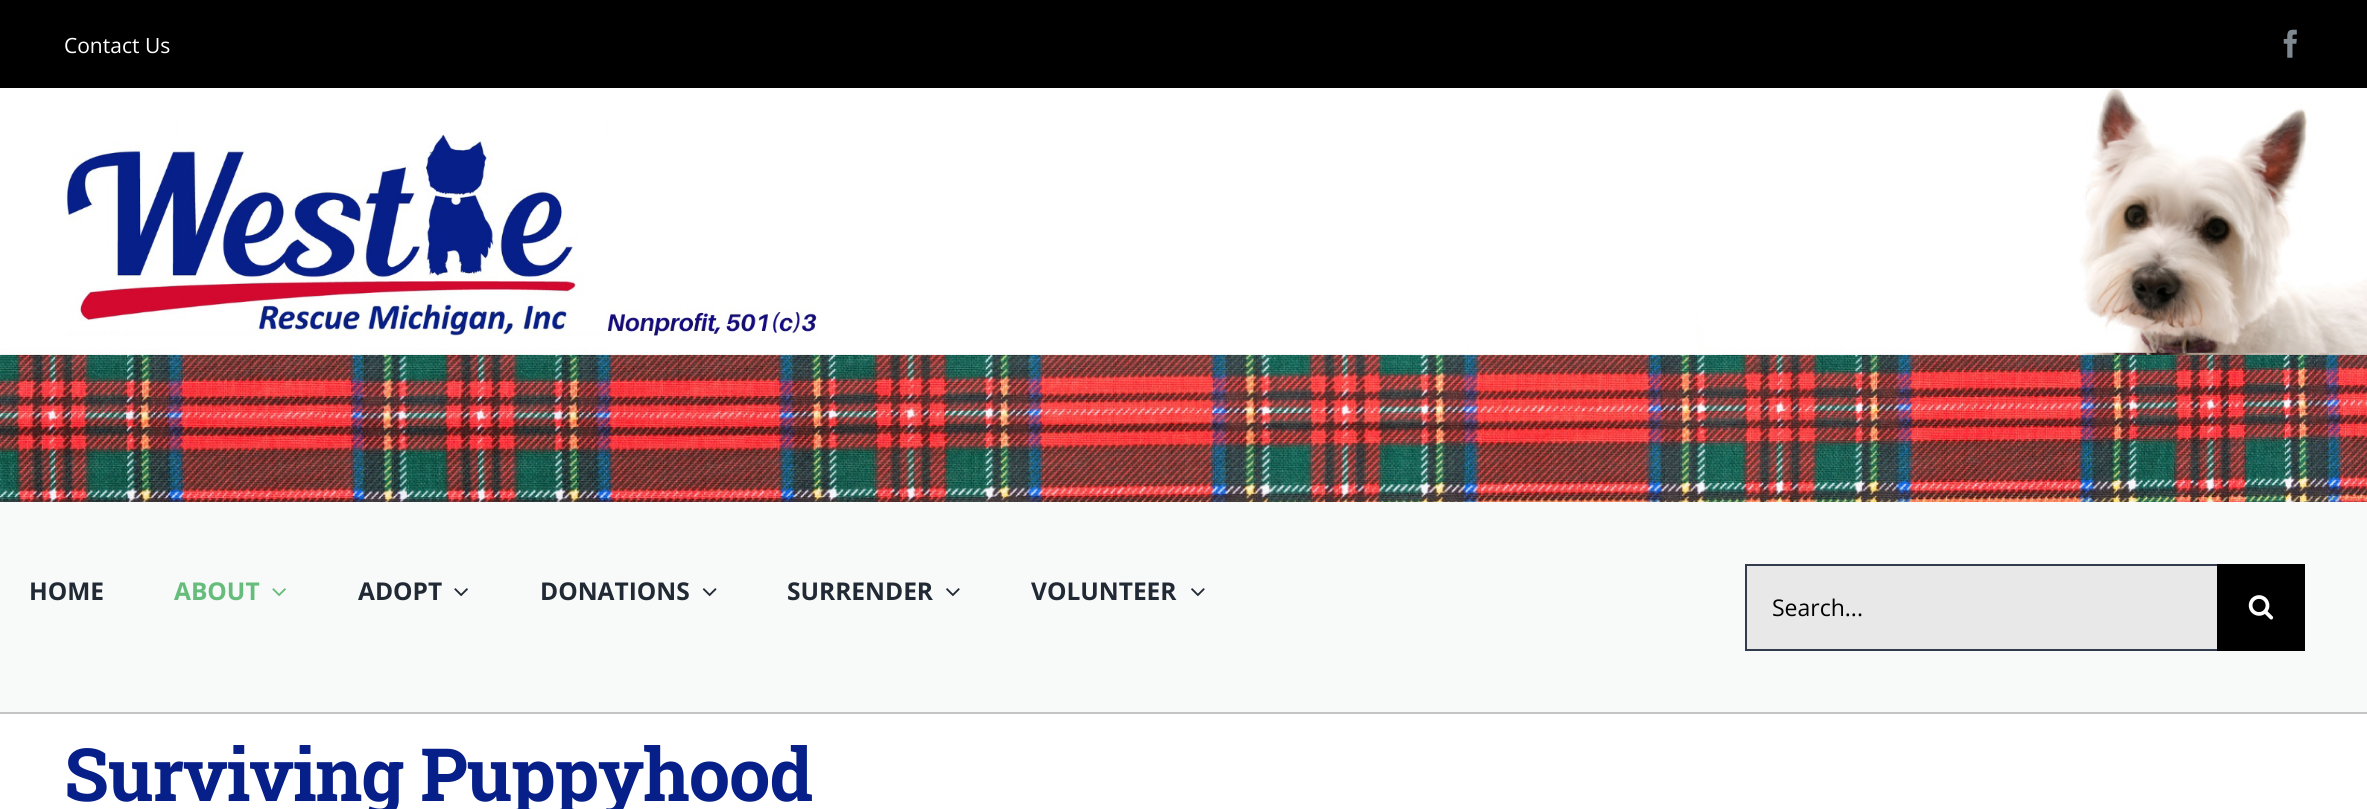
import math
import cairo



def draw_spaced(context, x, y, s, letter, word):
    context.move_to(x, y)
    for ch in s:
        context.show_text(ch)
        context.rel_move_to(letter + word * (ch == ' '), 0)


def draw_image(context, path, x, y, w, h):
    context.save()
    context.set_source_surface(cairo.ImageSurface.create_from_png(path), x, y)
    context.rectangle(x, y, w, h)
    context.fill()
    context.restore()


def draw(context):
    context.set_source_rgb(1, 1, 1)
    context.paint()
    context.set_source_rgb(0, 0, 0)
    context.rectangle(0, 0, 2367, 88)
    context.fill()
    draw_image(context, "images/1.png", 2283, 29, 14, 29)
    draw_image(context, "images/2.png", 0, 89, 2367, 413)
    draw_image(context, "images/3.png", 65, 134, 752, 202)
    context.set_source_rgb(248 / 255, 249 / 255, 249 / 255)
    context.rectangle(0, 502, 2367, 210)
    context.fill()
    context.set_source_rgb(196 / 255, 196 / 255, 196 / 255)
    context.rectangle(0, 712, 2367, 2)
    context.fill()
    draw_image(context, "images/4.png", 272, 588, 14, 9)
    draw_image(context, "images/5.png", 454, 588, 14, 9)
    draw_image(context, "images/6.png", 702, 588, 15, 9)
    draw_image(context, "images/7.png", 946, 588, 14, 9)
    draw_image(context, "images/7.png", 1191, 588, 14, 9)
    context.set_source_rgb(232 / 255, 232 / 255, 232 / 255)
    context.rectangle(1747, 566, 470, 83)
    context.fill()
    context.set_source_rgb(51 / 255, 60 / 255, 78 / 255)
    context.rectangle(1745, 564, 472, 2)
    context.fill()
    context.rectangle(1745, 649, 472, 2)
    context.fill()
    context.rectangle(1745, 564, 2, 87)
    context.fill()
    context.set_source_rgb(0, 0, 0)
    context.rectangle(2217, 564, 88, 87)
    context.fill()
    draw_image(context, "images/8.png", 2248, 595, 26, 25)
    context.select_font_face("Open Sans")
    context.set_font_size(21)
    context.set_source_rgb(1, 1, 1)
    context.move_to(64, 53)
    context.show_text("Contact Us")
    context.select_font_face("Open Sans", cairo.FontSlant.NORMAL, cairo.FontWeight.BOLD)
    context.set_font_size(24.5)
    context.set_source_rgb(33 / 255, 41 / 255, 52 / 255)
    context.move_to(29, 600)
    context.show_text("HOME")
    context.set_source_rgb(101 / 255, 188 / 255, 123 / 255)
    context.move_to(174, 600)
    context.show_text("ABOUT")
    context.set_source_rgb(33 / 255, 41 / 255, 52 / 255)
    context.move_to(358, 600)
    context.show_text("ADOPT")
    context.move_to(540, 600)
    context.show_text("DONATIONS")
    context.move_to(787, 600)
    context.show_text("SURRENDER")
    context.move_to(1031, 600)
    context.show_text("VOLUNTEER")
    context.select_font_face("Open Sans")
    context.set_font_size(23)
    context.set_source_rgb(0, 0, 0)
    context.move_to(1772, 616)
    context.show_text("Search...")
    context.select_font_face("Roboto Slab", cairo.FontSlant.NORMAL, cairo.FontWeight.BOLD)
    context.set_font_size(73.5)
    context.set_source_rgb(6 / 255, 31 / 255, 137 / 255)
    draw_spaced(context, 64, 801, "Surviving Puppyhood", -1.1, 0)


surface = cairo.ImageSurface(cairo.Format.RGB24, 2367, 809)
context = cairo.Context(surface)
options = cairo.FontOptions()
options.set_hint_metrics(cairo.HintMetrics.OFF)
options.set_hint_style(cairo.HintStyle.NONE)
context.set_font_options(options)
context.set_miter_limit(4)
draw(context)
surface.write_to_png("out.png")
